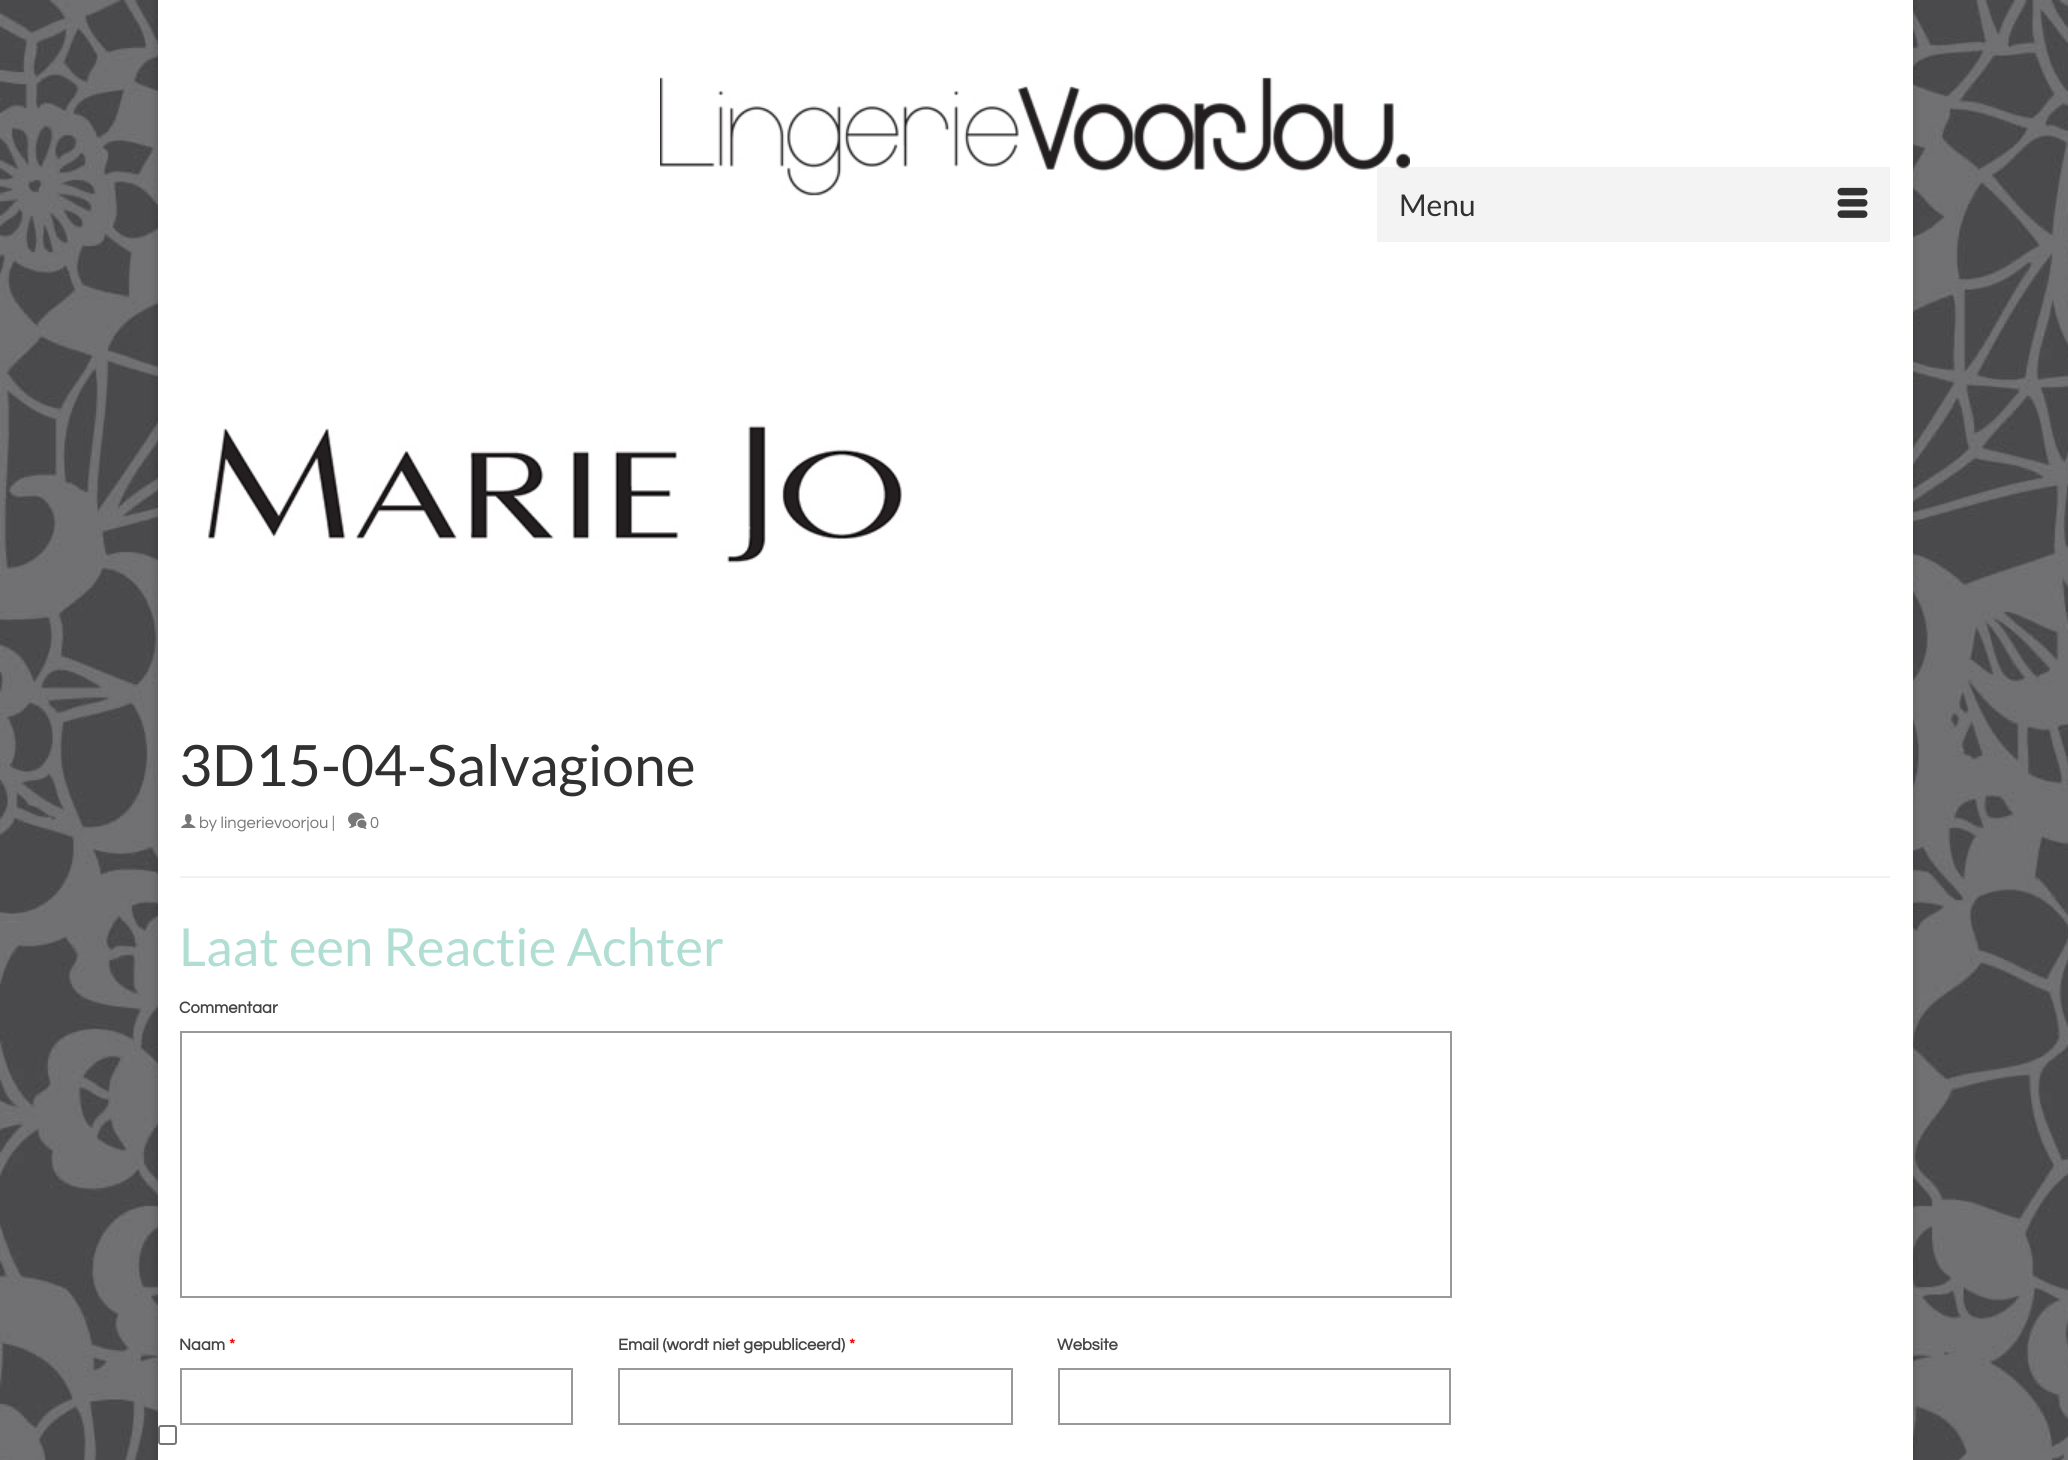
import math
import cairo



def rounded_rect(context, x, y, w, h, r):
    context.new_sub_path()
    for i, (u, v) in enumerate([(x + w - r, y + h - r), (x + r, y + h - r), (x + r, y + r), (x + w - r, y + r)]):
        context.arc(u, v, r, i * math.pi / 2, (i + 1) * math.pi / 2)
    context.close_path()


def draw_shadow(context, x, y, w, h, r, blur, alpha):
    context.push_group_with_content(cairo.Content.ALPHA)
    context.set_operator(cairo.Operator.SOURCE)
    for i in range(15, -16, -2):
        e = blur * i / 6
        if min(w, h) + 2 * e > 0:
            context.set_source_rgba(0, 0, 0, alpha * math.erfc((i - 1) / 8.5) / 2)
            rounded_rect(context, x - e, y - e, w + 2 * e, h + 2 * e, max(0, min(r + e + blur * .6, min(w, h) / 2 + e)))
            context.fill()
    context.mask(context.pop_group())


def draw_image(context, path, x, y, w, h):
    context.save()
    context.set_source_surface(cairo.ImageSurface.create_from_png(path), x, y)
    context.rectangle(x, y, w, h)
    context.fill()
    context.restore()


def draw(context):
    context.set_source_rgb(1, 1, 1)
    context.paint()
    draw_image(context, "images/1.png", 0, 0, 2068, 1460)
    context.set_source_rgb(0, 0, 0)
    draw_shadow(context, 156, -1, 1758, 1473, 0, 4, 0.16)
    context.set_source_rgb(1, 1, 1)
    context.rectangle(158, 0, 1755, 1460)
    context.fill()
    draw_image(context, "images/2.png", 660, 77, 750, 119)
    context.set_source_rgba(0, 0, 0, 0.05)
    context.rectangle(1377, 167, 513, 75)
    context.fill()
    draw_image(context, "images/3.png", 1837, 187, 31, 31)
    draw_image(context, "images/4.png", 207, 425, 695, 138)
    draw_image(context, "images/5.png", 181, 814, 15, 14)
    draw_image(context, "images/6.png", 348, 812, 19, 17)
    context.set_source_rgb(242 / 255, 242 / 255, 242 / 255)
    context.rectangle(180, 876, 1710, 2)
    context.fill()
    context.rectangle(181, 1032, 1270, 265)
    context.set_source_rgb(153 / 255, 153 / 255, 153 / 255)
    context.stroke()
    context.rectangle(181, 1369, 391, 55)
    context.stroke()
    context.rectangle(619, 1369, 393, 55)
    context.stroke()
    context.rectangle(1059, 1369, 391, 55)
    context.stroke()
    rounded_rect(context, 159, 1426, 17, 18, 2)
    context.set_source_rgb(118 / 255, 118 / 255, 118 / 255)
    context.stroke()
    context.select_font_face("Lato")
    context.set_font_size(30)
    context.set_source_rgb(48 / 255, 48 / 255, 48 / 255)
    context.move_to(1399, 216)
    context.show_text("Menu")
    context.set_font_size(57)
    context.move_to(179, 786)
    context.show_text("3D15-04-Salvagione")
    context.select_font_face("Questrial")
    context.set_font_size(16.5)
    context.set_source_rgb(119 / 255, 119 / 255, 119 / 255)
    context.move_to(199, 828)
    context.show_text("by lingerievoorjou |")
    context.move_to(370, 828)
    context.show_text("0")
    context.select_font_face("Lato")
    context.set_font_size(52.5)
    context.set_source_rgb(177 / 255, 222 / 255, 211 / 255)
    context.move_to(179, 966)
    context.show_text("Laat een Reactie Achter")
    context.select_font_face("Questrial", cairo.FontSlant.NORMAL, cairo.FontWeight.BOLD)
    context.set_font_size(16.5)
    context.set_source_rgb(68 / 255, 68 / 255, 68 / 255)
    context.move_to(179, 1013)
    context.show_text("Commentaar")
    context.move_to(179, 1350)
    context.show_text("Naam")
    context.set_source_rgb(1, 0, 0)
    context.move_to(229, 1350)
    context.show_text("*")
    context.set_source_rgb(68 / 255, 68 / 255, 68 / 255)
    context.move_to(618, 1350)
    context.show_text("Email (wordt niet gepubliceerd)")
    context.set_source_rgb(1, 0, 0)
    context.move_to(849, 1350)
    context.show_text("*")
    context.set_source_rgb(68 / 255, 68 / 255, 68 / 255)
    context.move_to(1057, 1350)
    context.show_text("Website")


surface = cairo.ImageSurface(cairo.Format.RGB24, 2068, 1460)
context = cairo.Context(surface)
options = cairo.FontOptions()
options.set_hint_metrics(cairo.HintMetrics.OFF)
options.set_hint_style(cairo.HintStyle.NONE)
context.set_font_options(options)
context.set_miter_limit(4)
draw(context)
surface.write_to_png("out.png")
